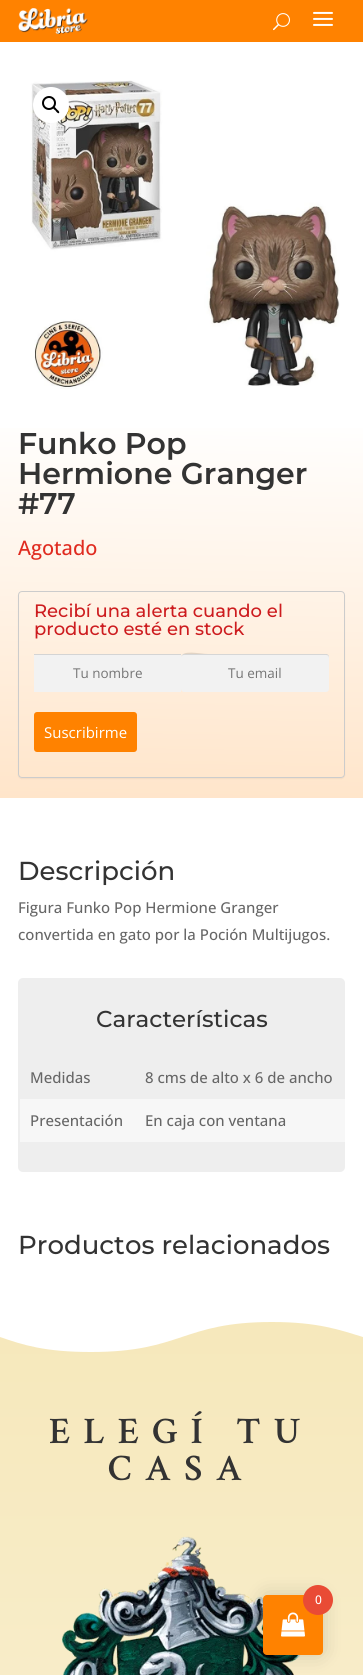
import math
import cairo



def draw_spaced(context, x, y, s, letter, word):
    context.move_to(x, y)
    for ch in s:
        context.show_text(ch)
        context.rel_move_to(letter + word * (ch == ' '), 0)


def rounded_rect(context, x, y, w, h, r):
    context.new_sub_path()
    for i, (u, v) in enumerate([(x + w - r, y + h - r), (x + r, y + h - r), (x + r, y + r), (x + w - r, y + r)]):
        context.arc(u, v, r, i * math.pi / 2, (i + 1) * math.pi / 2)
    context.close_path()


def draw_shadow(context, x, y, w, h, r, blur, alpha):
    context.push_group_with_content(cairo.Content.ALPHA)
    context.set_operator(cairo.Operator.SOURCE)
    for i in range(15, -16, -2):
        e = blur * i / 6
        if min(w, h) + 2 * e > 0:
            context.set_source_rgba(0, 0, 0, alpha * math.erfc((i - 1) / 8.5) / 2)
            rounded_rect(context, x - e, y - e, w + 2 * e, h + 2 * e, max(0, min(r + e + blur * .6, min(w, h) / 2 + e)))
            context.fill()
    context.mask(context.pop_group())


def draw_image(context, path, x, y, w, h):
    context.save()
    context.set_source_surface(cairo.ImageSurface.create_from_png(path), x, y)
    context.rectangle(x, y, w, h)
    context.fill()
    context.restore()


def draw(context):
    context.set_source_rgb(1, 1, 1)
    context.paint()
    context.set_source_rgb(1, 130 / 255, 0)
    context.rectangle(0, 0, 363, 42)
    context.fill()
    draw_image(context, "images/1.png", 18, 8, 70, 26)
    draw_image(context, "images/2.png", 273, 13, 17, 18)
    draw_image(context, "images/3.png", 313, 11, 20, 15)
    gradient = cairo.LinearGradient(175, 801, 188, 39)
    gradient.add_color_stop_rgba(0, 1, 229 / 255, 202 / 255, 1)
    gradient.add_color_stop_rgba(0.51, 1, 1, 1, 1)
    context.set_source(gradient)
    context.rectangle(0, 428, 363, 370)
    context.fill()
    draw_image(context, "images/4.png", 30, 80, 310, 309)
    context.set_source_rgb(1, 1, 1)
    context.arc(51, 105, 18, 0, 2 * math.pi)
    context.fill()
    context.arc(49, 103, 6, 0, 2 * math.pi)
    context.set_source_rgb(0, 0, 0)
    context.stroke()
    context.new_path()
    context.move_to(53.5, 107)
    context.curve_to(54.5, 106, 56, 108.5, 57, 109.5)
    context.curve_to(57.5, 110, 60, 111.5, 59, 113)
    context.curve_to(58, 114, 56, 111.5, 55.5, 110.5)
    context.curve_to(55, 110, 52, 108.5, 53.5, 107)
    context.close_path()
    context.fill()
    context.save()
    context.set_fill_rule(cairo.FillRule.EVEN_ODD)
    context.new_path()
    context.move_to(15, 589)
    context.line_to(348, 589)
    context.line_to(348, 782)
    context.line_to(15, 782)
    context.close_path()
    context.move_to(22, 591)
    context.line_to(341, 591)
    context.curve_to(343, 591, 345, 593, 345, 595)
    context.line_to(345, 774)
    context.curve_to(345, 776, 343, 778, 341, 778)
    context.line_to(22, 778)
    context.curve_to(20, 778, 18, 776, 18, 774)
    context.line_to(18, 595)
    context.curve_to(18, 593, 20, 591, 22, 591)
    context.close_path()
    context.clip()
    context.set_source_rgb(0, 0, 0)
    draw_shadow(context, 18, 592, 327, 187, 4, 0.5, 0.05)
    context.restore()
    rounded_rect(context, 18.5, 591.5, 326, 186, 3.5)
    context.set_source_rgb(204 / 255, 204 / 255, 204 / 255)
    context.set_line_width(1)
    context.stroke()
    context.set_source_rgb(242 / 255, 242 / 255, 242 / 255)
    context.rectangle(34, 655, 147, 37)
    context.fill()
    context.set_source_rgb(212 / 255, 212 / 255, 212 / 255)
    context.rectangle(34, 654, 147, 1)
    context.fill()
    context.set_source_rgb(242 / 255, 242 / 255, 242 / 255)
    rounded_rect(context, 181, 654, 148, 38, 3)
    context.fill()
    context.set_source_rgba(0, 0, 0, 0.12)
    context.new_path()
    context.move_to(184, 655)
    context.line_to(326, 655)
    context.curve_to(328, 655, 329, 656, 329, 658)
    context.curve_to(329, 656, 329, 655, 327, 654)
    context.line_to(208, 654)
    context.curve_to(200, 654, 181, 649, 181, 658)
    context.curve_to(181, 656, 182, 655, 184, 655)
    context.close_path()
    context.fill()
    context.set_source_rgb(1, 130 / 255, 0)
    rounded_rect(context, 34, 712, 103, 40, 3)
    context.fill()
    context.set_source_rgb(238 / 255, 238 / 255, 238 / 255)
    rounded_rect(context, 18, 978, 327, 194, 5)
    context.fill()
    context.set_source_rgb(247 / 255, 247 / 255, 247 / 255)
    context.rectangle(20, 1099, 325, 43)
    context.fill()
    gradient = cairo.LinearGradient(181, 1313, 182, 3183)
    gradient.add_color_stop_rgba(0, 246 / 255, 232 / 255, 187 / 255, 1)
    gradient.add_color_stop_rgba(1, 1, 1, 1, 1)
    context.set_source(gradient)
    context.rectangle(0, 1322, 363, 353)
    context.fill()
    context.save()
    context.rectangle(0, 1313, 363, 50)
    context.clip()
    context.set_source_rgb(1, 1, 1)
    context.new_path()
    context.move_to(91, 1352)
    context.curve_to(182, 1352, 182, 1322, 272, 1322)
    context.curve_to(318, 1322, 340, 1330, 363, 1337)
    context.line_to(363, 1312)
    context.line_to(0, 1312)
    context.line_to(0, 1337)
    context.curve_to(23, 1345, 45, 1352, 91, 1352)
    context.close_path()
    context.fill()
    context.restore()
    draw_image(context, "images/5.png", 62, 1536, 239, 139)
    context.set_source_rgb(0, 0, 0)
    draw_shadow(context, 263, 1595, 60, 60, 4, 10, 0.15)
    context.set_source_rgb(1, 130 / 255, 0)
    rounded_rect(context, 263, 1595, 60, 60, 4)
    context.fill()
    draw_image(context, "images/6.png", 281, 1612, 24, 25)
    context.set_source_rgb(233 / 255, 75 / 255, 53 / 255)
    context.arc(318, 1600, 15, 0, 2 * math.pi)
    context.fill()
    context.select_font_face("Montserrat SemiBold")
    context.set_font_size(30)
    context.set_source_rgb(51 / 255, 51 / 255, 51 / 255)
    context.move_to(18, 454)
    context.show_text("Funko Pop")
    context.move_to(18, 484)
    context.show_text("Hermione Granger")
    context.move_to(18, 514)
    context.show_text("#77")
    context.select_font_face("Open Sans Medium")
    context.set_font_size(20)
    context.set_source_rgb(224 / 255, 43 / 255, 32 / 255)
    context.move_to(18, 555)
    context.show_text("Agotado")
    context.select_font_face("Montserrat Thin")
    context.set_font_size(18)
    context.set_source_rgb(205 / 255, 28 / 255, 31 / 255)
    context.move_to(34, 617)
    context.show_text("Recibí una alerta cuando el")
    context.move_to(34, 635)
    context.show_text("producto esté en stock")
    context.select_font_face("Open Sans")
    context.set_font_size(13.5)
    context.set_source_rgb(117 / 255, 117 / 255, 117 / 255)
    context.move_to(73, 678)
    context.show_text("Tu nombre")
    context.move_to(228, 678)
    context.show_text("Tu email")
    context.set_font_size(15)
    context.set_source_rgb(1, 1, 1)
    context.move_to(44, 738)
    context.show_text("Suscribirme")
    context.select_font_face("Montserrat Thin")
    context.set_font_size(26)
    context.set_source_rgb(51 / 255, 51 / 255, 51 / 255)
    context.move_to(18, 880)
    context.show_text("Descripción")
    context.select_font_face("Open Sans Medium")
    context.set_font_size(15)
    context.set_source_rgb(102 / 255, 102 / 255, 102 / 255)
    context.move_to(18, 913)
    context.show_text("Figura Funko Pop Hermione Granger")
    context.move_to(18, 940)
    context.show_text("convertida en gato por la Poción Multijugos.")
    context.select_font_face("Montserrat Thin")
    context.set_font_size(23)
    context.set_source_rgb(51 / 255, 51 / 255, 51 / 255)
    context.move_to(96, 1027)
    context.show_text("Características")
    context.select_font_face("Open Sans Medium")
    context.set_font_size(15)
    context.set_source_rgb(102 / 255, 102 / 255, 102 / 255)
    context.move_to(30, 1083)
    context.show_text("Medidas")
    context.move_to(145, 1083)
    context.show_text("8 cms de alto x 6 de ancho")
    context.move_to(30, 1126)
    context.show_text("Presentación")
    context.move_to(145, 1126)
    context.show_text("En caja con ventana")
    context.select_font_face("Montserrat Thin")
    context.set_font_size(26)
    context.set_source_rgb(51 / 255, 51 / 255, 51 / 255)
    context.move_to(18, 1254)
    context.show_text("Productos relacionados")
    context.select_font_face("Crimson Text SemiBold")
    context.set_font_size(37.5)
    draw_spaced(context, 49, 1443, "ELEGÍ TU", 13, 0)
    draw_spaced(context, 108, 1480, "CASA", 13, 0)
    context.select_font_face("Open Sans Medium")
    context.set_font_size(12)
    context.set_source_rgb(1, 1, 1)
    context.move_to(315, 1604)
    context.show_text("0")


surface = cairo.ImageSurface(cairo.Format.RGB24, 363, 1675)
context = cairo.Context(surface)
options = cairo.FontOptions()
options.set_hint_metrics(cairo.HintMetrics.OFF)
options.set_hint_style(cairo.HintStyle.NONE)
context.set_font_options(options)
context.set_miter_limit(4)
draw(context)
surface.write_to_png("out.png")
